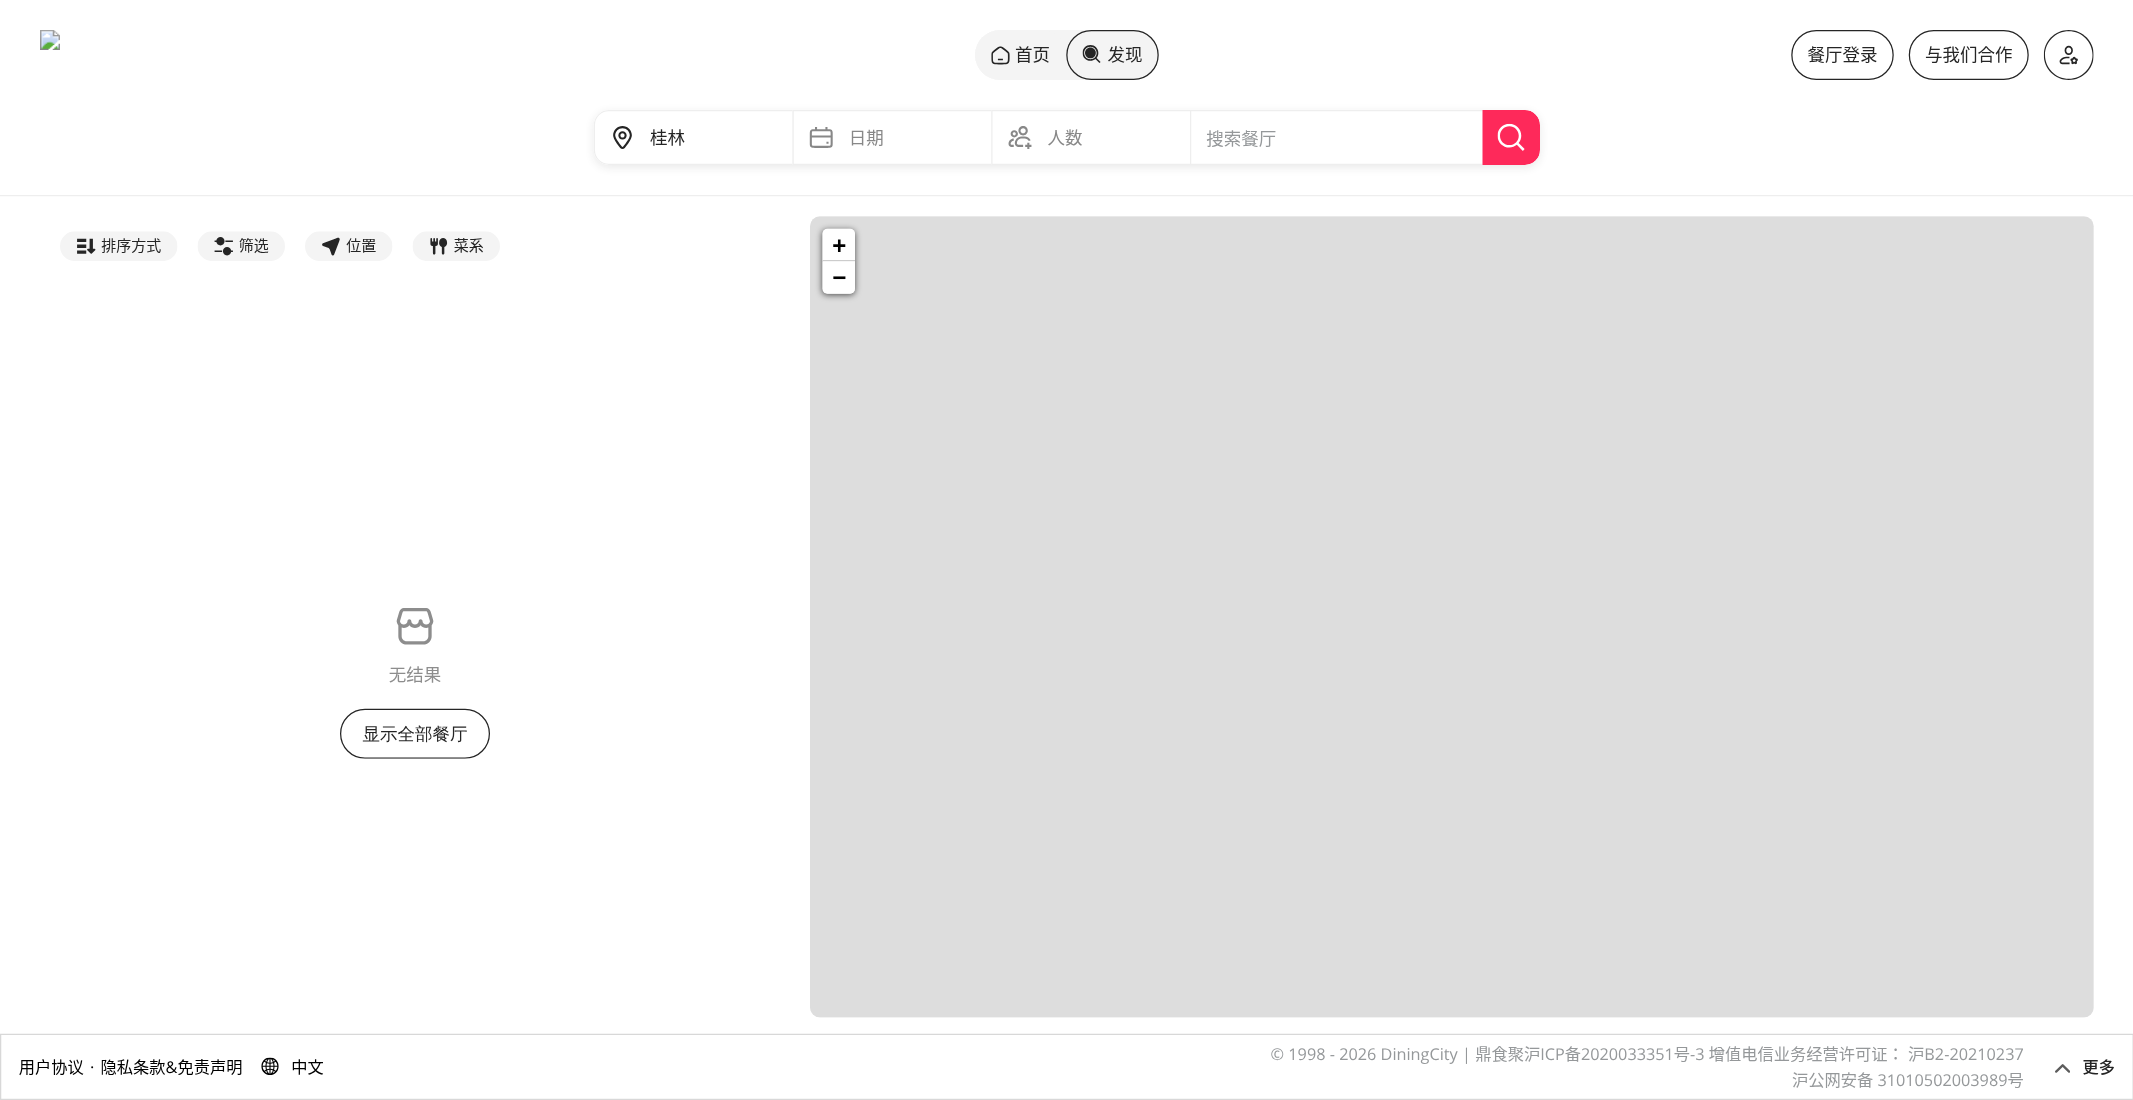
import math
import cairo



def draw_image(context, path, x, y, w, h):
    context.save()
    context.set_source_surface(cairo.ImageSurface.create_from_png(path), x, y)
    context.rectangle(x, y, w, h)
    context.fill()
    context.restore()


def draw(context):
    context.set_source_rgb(1, 1, 1)
    context.paint()
    draw_image(context, "images/1.png", 0, 30, 2133, 1070)


surface = cairo.ImageSurface(cairo.Format.RGB24, 2133, 1100)
context = cairo.Context(surface)
options = cairo.FontOptions()
options.set_hint_metrics(cairo.HintMetrics.OFF)
options.set_hint_style(cairo.HintStyle.NONE)
context.set_font_options(options)
context.set_miter_limit(4)
draw(context)
surface.write_to_png("out.png")
